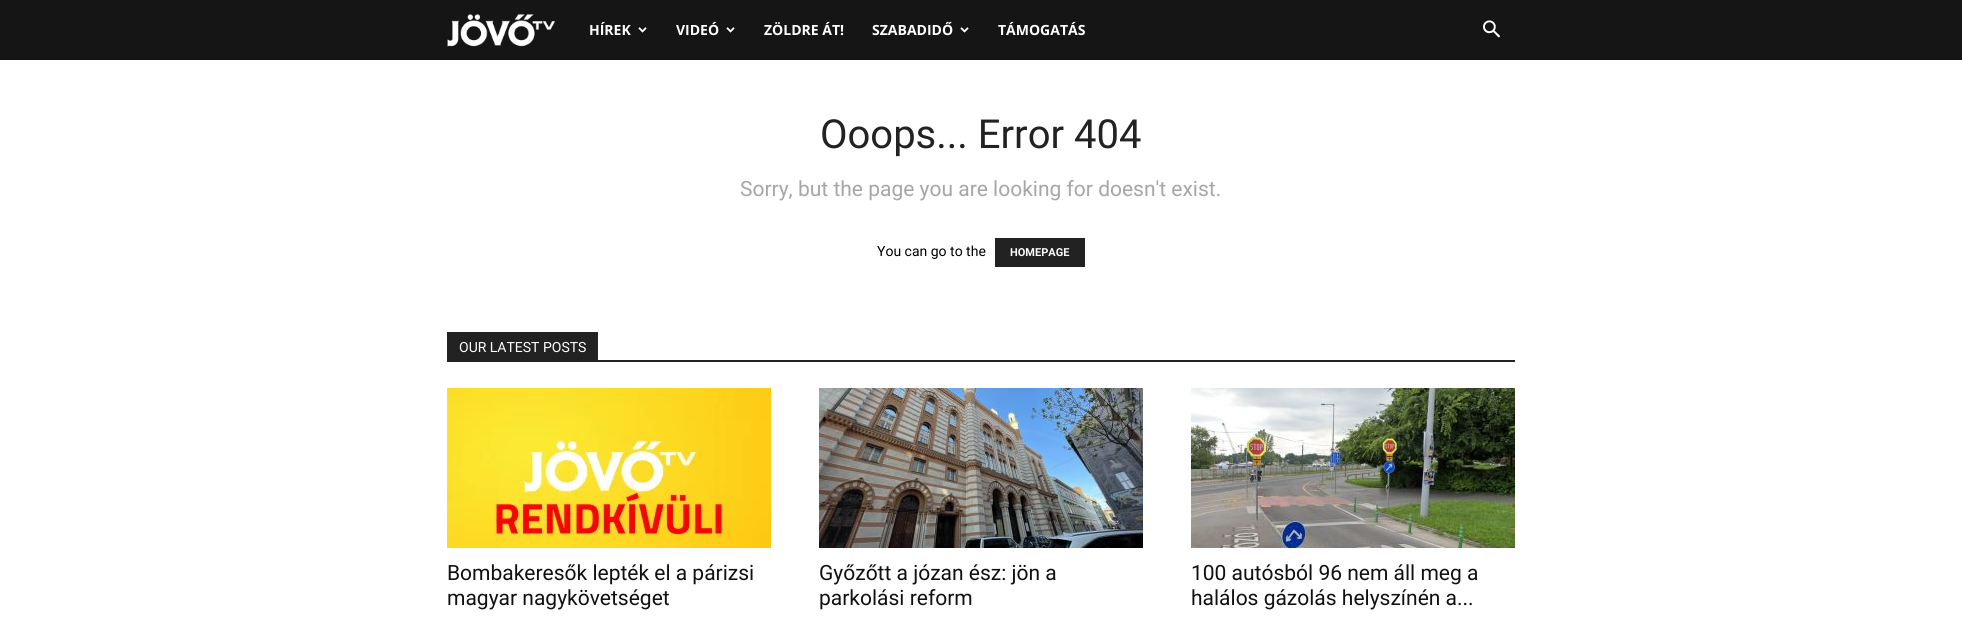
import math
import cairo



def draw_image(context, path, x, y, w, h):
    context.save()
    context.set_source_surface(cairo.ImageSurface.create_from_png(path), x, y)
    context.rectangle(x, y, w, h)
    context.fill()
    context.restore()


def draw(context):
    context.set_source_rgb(1, 1, 1)
    context.paint()
    context.set_source_rgb(21 / 255, 21 / 255, 21 / 255)
    context.rectangle(0, 0, 1962, 60)
    context.fill()
    draw_image(context, "images/1.png", 447, 14, 108, 33)
    draw_image(context, "images/2.png", 638, 27, 9, 6)
    draw_image(context, "images/2.png", 726, 27, 9, 6)
    draw_image(context, "images/2.png", 960, 27, 9, 6)
    draw_image(context, "images/3.png", 1483, 20, 17, 18)
    context.set_source_rgb(34 / 255, 34 / 255, 34 / 255)
    context.rectangle(995, 238, 90, 29)
    context.fill()
    context.rectangle(447, 360, 1068, 2)
    context.fill()
    context.rectangle(447, 332, 151, 28)
    context.fill()
    draw_image(context, "images/4.png", 447, 388, 324, 160)
    draw_image(context, "images/5.png", 819, 388, 324, 160)
    draw_image(context, "images/6.png", 1191, 388, 324, 160)
    context.select_font_face("Open Sans", cairo.FontSlant.NORMAL, cairo.FontWeight.BOLD)
    context.set_font_size(14)
    context.set_source_rgb(1, 1, 1)
    context.move_to(589, 35)
    context.show_text("HÍREK")
    context.move_to(676, 35)
    context.show_text("VIDEÓ")
    context.move_to(764, 35)
    context.show_text("ZÖLDRE ÁT!")
    context.move_to(872, 35)
    context.show_text("SZABADIDŐ")
    context.move_to(998, 35)
    context.show_text("TÁMOGATÁS")
    context.select_font_face("Roboto")
    context.set_font_size(40)
    context.set_source_rgb(34 / 255, 34 / 255, 34 / 255)
    context.move_to(820, 148)
    context.show_text("Ooops... Error 404")
    context.set_font_size(21)
    context.set_source_rgb(166 / 255, 166 / 255, 166 / 255)
    context.move_to(740, 196)
    context.show_text("Sorry, but the page you are looking for doesn't exist.")
    context.set_font_size(14)
    context.set_source_rgb(0, 0, 0)
    context.move_to(877, 256)
    context.show_text("You can go to the")
    context.select_font_face("Roboto", cairo.FontSlant.NORMAL, cairo.FontWeight.BOLD)
    context.set_font_size(11)
    context.set_source_rgb(1, 1, 1)
    context.move_to(1010, 256)
    context.show_text("HOMEPAGE")
    context.select_font_face("Roboto")
    context.set_font_size(14)
    context.move_to(459, 352)
    context.show_text("OUR LATEST POSTS")
    context.set_font_size(21)
    context.set_source_rgb(17 / 255, 17 / 255, 17 / 255)
    context.move_to(447, 580)
    context.show_text("Bombakeresők lepték el a párizsi")
    context.move_to(447, 605)
    context.show_text("magyar nagykövetséget")
    context.move_to(819, 580)
    context.show_text("Győzőtt a józan ész: jön a")
    context.move_to(819, 605)
    context.show_text("parkolási reform")
    context.move_to(1191, 580)
    context.show_text("100 autósból 96 nem áll meg a")
    context.move_to(1191, 605)
    context.show_text("halálos gázolás helyszínén a...")


surface = cairo.ImageSurface(cairo.Format.RGB24, 1962, 621)
context = cairo.Context(surface)
options = cairo.FontOptions()
options.set_hint_metrics(cairo.HintMetrics.OFF)
options.set_hint_style(cairo.HintStyle.NONE)
context.set_font_options(options)
context.set_miter_limit(4)
draw(context)
surface.write_to_png("out.png")
